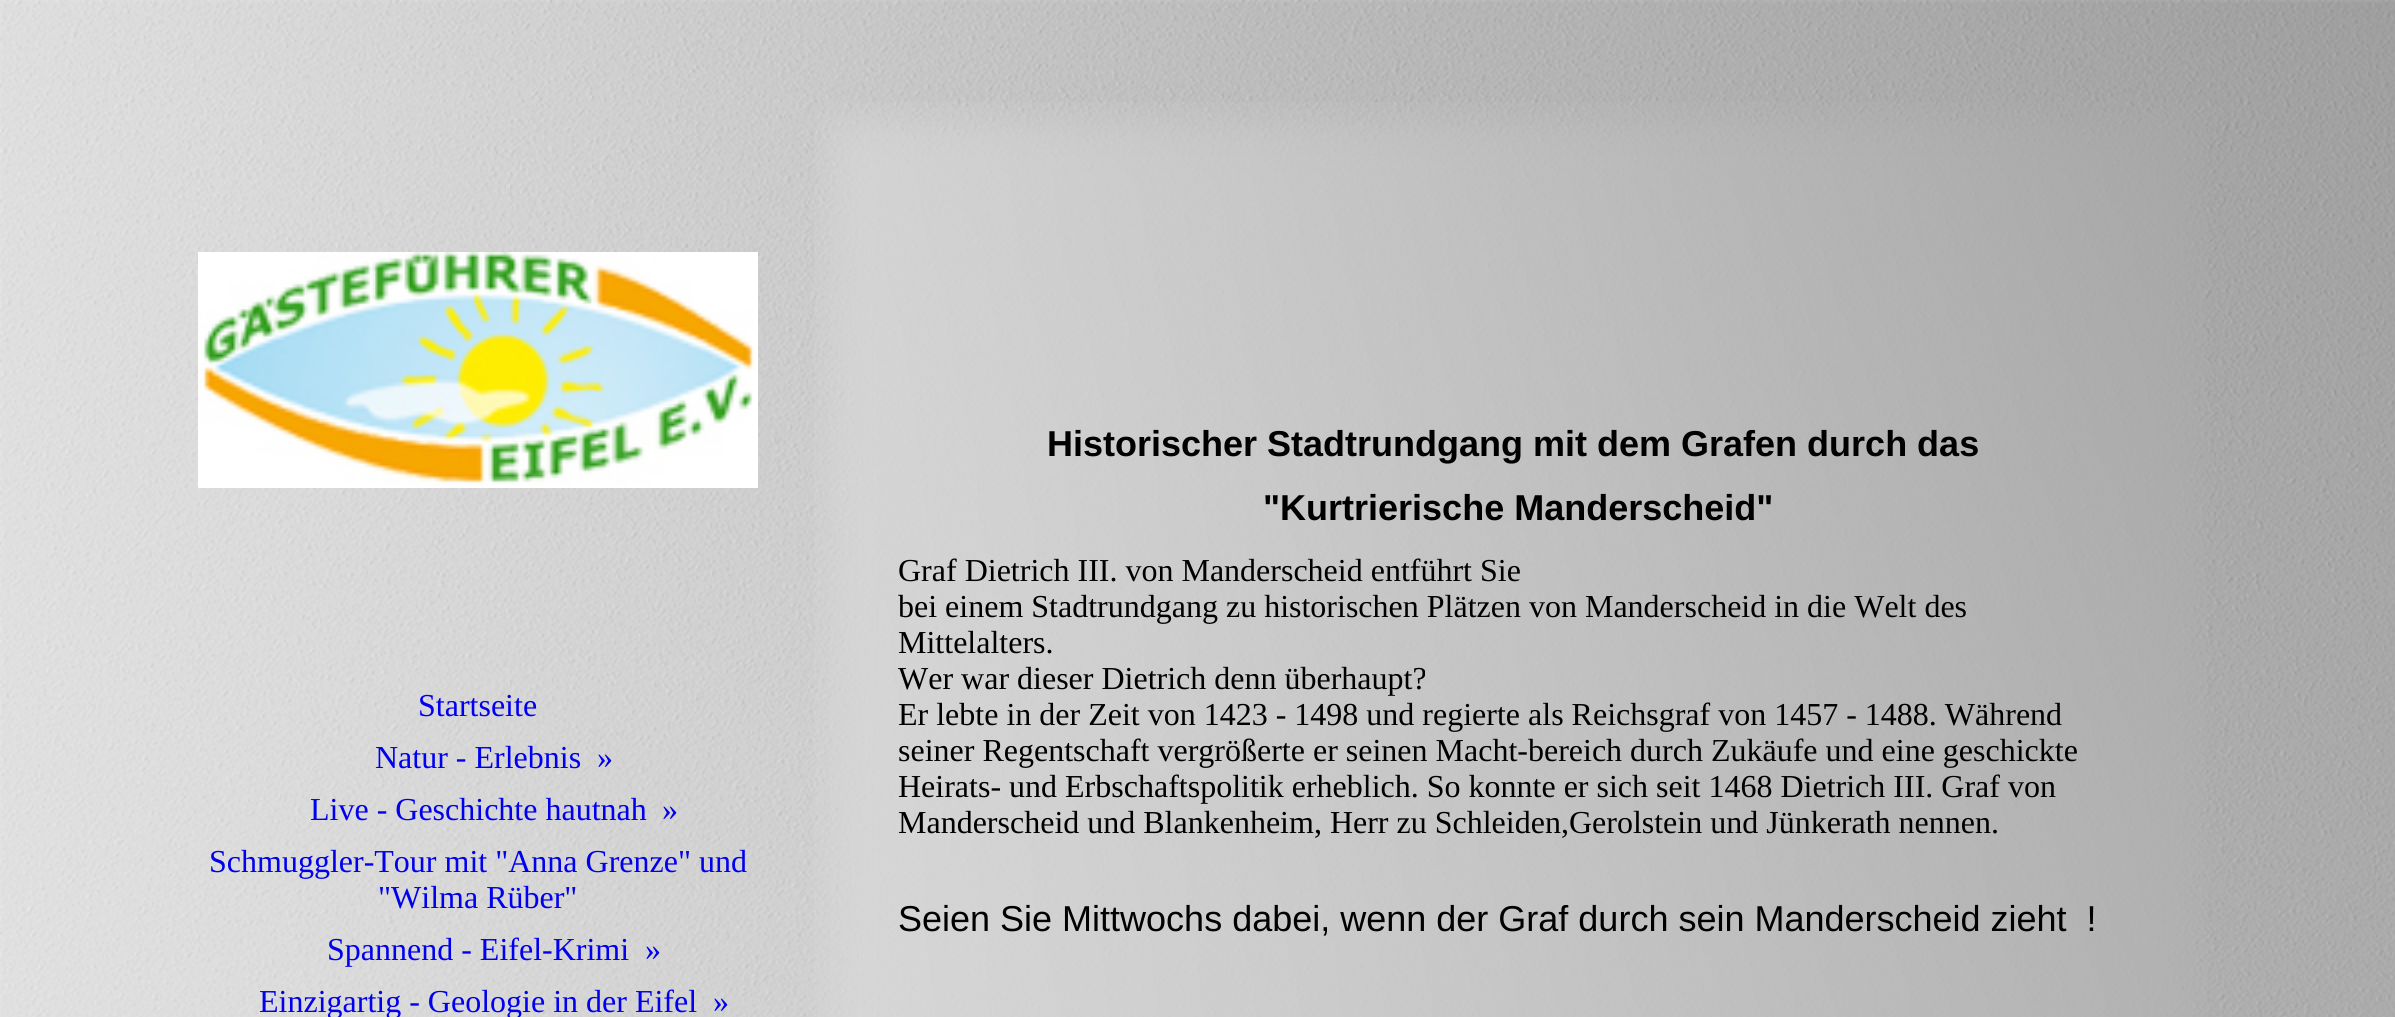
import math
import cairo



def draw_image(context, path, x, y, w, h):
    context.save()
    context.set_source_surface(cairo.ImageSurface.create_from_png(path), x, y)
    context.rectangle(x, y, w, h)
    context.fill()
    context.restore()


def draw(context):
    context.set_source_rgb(1, 1, 1)
    context.paint()
    draw_image(context, "images/1.png", 0, 0, 2395, 1017)
    draw_image(context, "images/2.png", 198, 252, 560, 236)
    draw_image(context, "images/3.png", 814, 102, 1393, 915)
    context.select_font_face("Liberation Serif")
    context.set_font_size(32)
    context.set_source_rgb(0, 0, 238 / 255)
    context.move_to(418, 716)
    context.show_text("Startseite")
    context.move_to(375, 768)
    context.show_text("Natur - Erlebnis")
    context.move_to(597, 768)
    context.show_text("»")
    context.move_to(310, 820)
    context.show_text("Live - Geschichte hautnah")
    context.move_to(662, 820)
    context.show_text("»")
    context.move_to(209, 872)
    context.show_text("Schmuggler-Tour mit \"Anna Grenze\" und")
    context.move_to(378, 908)
    context.show_text("\"Wilma Rüber\"")
    context.move_to(327, 960)
    context.show_text("Spannend - Eifel-Krimi")
    context.move_to(645, 960)
    context.show_text("»")
    context.move_to(259, 1012)
    context.show_text("Einzigartig - Geologie in der Eifel")
    context.move_to(713, 1012)
    context.show_text("»")
    context.select_font_face("Liberation Sans", cairo.FontSlant.NORMAL, cairo.FontWeight.BOLD)
    context.set_font_size(36)
    context.set_source_rgb(0, 0, 0)
    context.move_to(1047, 456)
    context.show_text("Historischer Stadtrundgang mit dem Grafen durch das")
    context.move_to(1263, 520)
    context.show_text("\"Kurtrierische Manderscheid\"")
    context.select_font_face("Liberation Serif")
    context.set_font_size(32)
    context.move_to(898, 581)
    context.show_text("Graf Dietrich III. von Manderscheid entführt Sie")
    context.move_to(898, 617)
    context.show_text("bei einem Stadtrundgang zu historischen Plätzen von Manderscheid in die Welt des")
    context.move_to(898, 653)
    context.show_text("Mittelalters.")
    context.move_to(898, 689)
    context.show_text("Wer war dieser Dietrich denn überhaupt?")
    context.move_to(898, 725)
    context.show_text("Er lebte in der Zeit von 1423 - 1498 und regierte als Reichsgraf von 1457 - 1488. Während")
    context.move_to(898, 761)
    context.show_text("seiner Regentschaft vergrößerte er seinen Macht-bereich durch Zukäufe und eine geschickte")
    context.move_to(898, 797)
    context.show_text("Heirats- und Erbschaftspolitik erheblich. So konnte er sich seit 1468 Dietrich III. Graf von")
    context.move_to(898, 833)
    context.show_text("Manderscheid und Blankenheim, Herr zu Schleiden,Gerolstein und Jünkerath nennen.")
    context.select_font_face("Liberation Sans")
    context.set_font_size(36)
    context.move_to(898, 931)
    context.show_text("Seien Sie Mittwochs dabei, wenn der Graf durch sein Manderscheid zieht  !")


surface = cairo.ImageSurface(cairo.Format.RGB24, 2395, 1017)
context = cairo.Context(surface)
options = cairo.FontOptions()
options.set_hint_metrics(cairo.HintMetrics.OFF)
options.set_hint_style(cairo.HintStyle.NONE)
context.set_font_options(options)
context.set_miter_limit(4)
draw(context)
surface.write_to_png("out.png")
